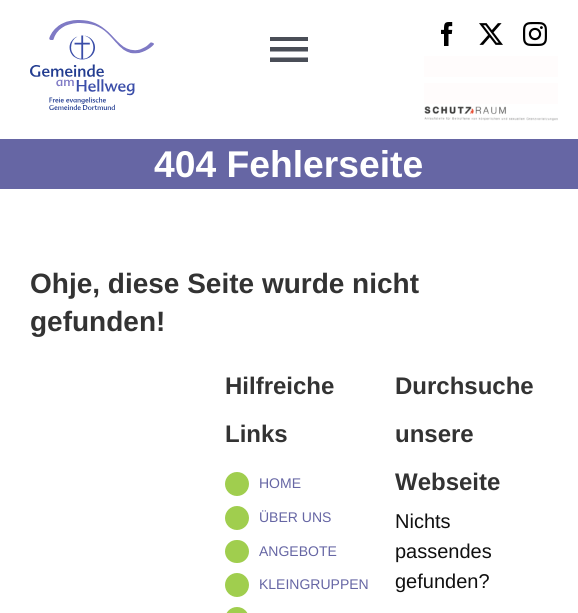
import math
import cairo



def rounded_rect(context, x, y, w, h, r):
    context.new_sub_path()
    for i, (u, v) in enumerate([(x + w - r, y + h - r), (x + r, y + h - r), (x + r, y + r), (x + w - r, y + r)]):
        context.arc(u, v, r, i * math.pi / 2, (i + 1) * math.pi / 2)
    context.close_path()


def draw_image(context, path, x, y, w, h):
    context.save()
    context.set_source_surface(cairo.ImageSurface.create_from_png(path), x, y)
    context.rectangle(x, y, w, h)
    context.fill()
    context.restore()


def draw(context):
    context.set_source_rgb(1, 1, 1)
    context.paint()
    draw_image(context, "images/1.png", 30, 20, 124, 90)
    context.set_source_rgb(74 / 255, 78 / 255, 87 / 255)
    context.new_path()
    context.move_to(270, 37)
    context.line_to(308, 37)
    context.line_to(308, 41)
    context.line_to(270, 41)
    context.close_path()
    context.move_to(270, 51.5)
    context.line_to(270, 47)
    context.line_to(308, 47)
    context.line_to(308, 51.5)
    context.close_path()
    context.move_to(270, 62)
    context.line_to(270, 57.5)
    context.line_to(308, 57.5)
    context.line_to(308, 62)
    context.close_path()
    context.fill()
    draw_image(context, "images/2.png", 441, 22, 12, 24)
    draw_image(context, "images/3.png", 479, 23, 24, 22)
    draw_image(context, "images/4.png", 523, 22, 24, 24)
    context.set_source_rgb(1, 252 / 255, 252 / 255)
    context.rectangle(424, 56, 134, 21)
    context.fill()
    context.rectangle(424, 83, 134, 21)
    context.fill()
    draw_image(context, "images/5.png", 424, 106, 134, 15)
    context.set_source_rgb(102 / 255, 102 / 255, 164 / 255)
    context.rectangle(0, 139, 578, 50)
    context.fill()
    context.set_source_rgb(160 / 255, 206 / 255, 78 / 255)
    context.arc(237, 484, 12, 0, 2 * math.pi)
    context.fill()
    context.arc(237, 518, 12, 0, 2 * math.pi)
    context.fill()
    rounded_rect(context, 225, 540, 24, 23, 11.5)
    context.fill()
    context.arc(237, 585, 12, 0, 2 * math.pi)
    context.fill()
    rounded_rect(context, 225, 607, 24, 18, 12)
    context.fill()
    context.select_font_face("Liberation Sans", cairo.FontSlant.NORMAL, cairo.FontWeight.BOLD)
    context.set_font_size(37.25)
    context.set_source_rgb(1, 1, 1)
    context.move_to(154, 177)
    context.show_text("404 Fehlerseite")
    context.set_font_size(28)
    context.set_source_rgb(51 / 255, 51 / 255, 51 / 255)
    context.move_to(30, 293)
    context.show_text("Ohje, diese Seite wurde nicht")
    context.move_to(30, 331)
    context.show_text("gefunden!")
    context.set_font_size(24)
    context.move_to(225, 394)
    context.show_text("Hilfreiche")
    context.move_to(225, 442)
    context.show_text("Links")
    context.select_font_face("Liberation Sans")
    context.set_font_size(14)
    context.set_source_rgb(102 / 255, 102 / 255, 164 / 255)
    context.move_to(259, 488)
    context.show_text("HOME")
    context.move_to(259, 522)
    context.show_text("ÜBER UNS")
    context.move_to(259, 556)
    context.show_text("ANGEBOTE")
    context.move_to(259, 589)
    context.show_text("KLEINGRUPPEN")
    context.select_font_face("Liberation Sans", cairo.FontSlant.NORMAL, cairo.FontWeight.BOLD)
    context.set_font_size(24)
    context.set_source_rgb(51 / 255, 51 / 255, 51 / 255)
    context.move_to(395, 394)
    context.show_text("Durchsuche")
    context.move_to(395, 442)
    context.show_text("unsere")
    context.move_to(395, 490)
    context.show_text("Webseite")
    context.select_font_face("Liberation Sans")
    context.set_font_size(20)
    context.set_source_rgb(16 / 255, 16 / 255, 16 / 255)
    context.move_to(395, 528)
    context.show_text("Nichts")
    context.move_to(395, 558)
    context.show_text("passendes")
    context.move_to(395, 588)
    context.show_text("gefunden?")


surface = cairo.ImageSurface(cairo.Format.RGB24, 578, 613)
context = cairo.Context(surface)
options = cairo.FontOptions()
options.set_hint_metrics(cairo.HintMetrics.OFF)
options.set_hint_style(cairo.HintStyle.NONE)
context.set_font_options(options)
context.set_miter_limit(4)
draw(context)
surface.write_to_png("out.png")
